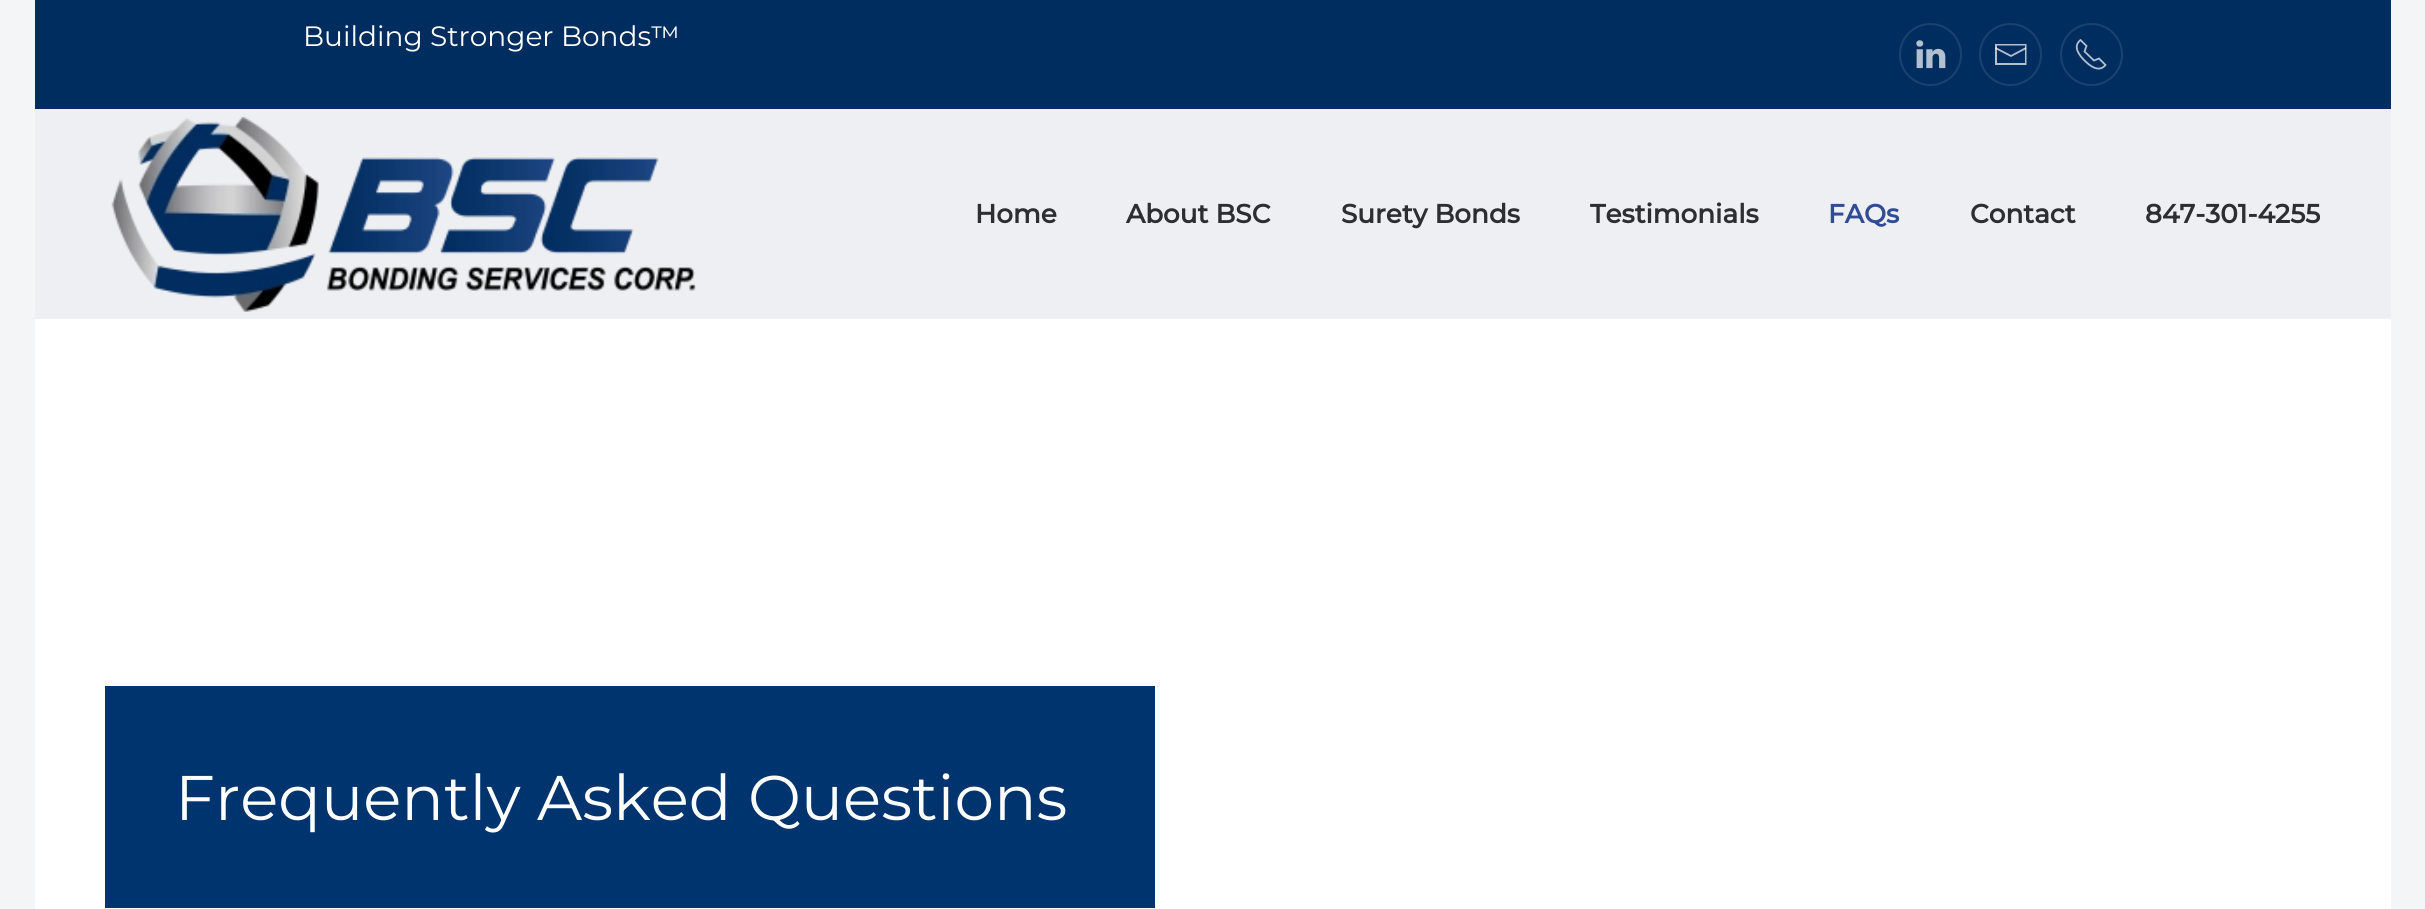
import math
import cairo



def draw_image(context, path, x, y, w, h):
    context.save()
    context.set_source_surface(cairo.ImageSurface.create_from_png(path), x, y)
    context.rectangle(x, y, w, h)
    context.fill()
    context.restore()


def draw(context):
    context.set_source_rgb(244 / 255, 245 / 255, 247 / 255)
    context.paint()
    context.set_source_rgb(0, 45 / 255, 95 / 255)
    context.rectangle(35, 0, 2356, 109)
    context.fill()
    context.arc(1930.5, 54.5, 30.5, 0, 2 * math.pi)
    context.set_source_rgb(26 / 255, 66 / 255, 111 / 255)
    context.stroke()
    draw_image(context, "images/1.png", 1916, 40, 30, 29)
    context.arc(2010.5, 54.5, 30.5, 0, 2 * math.pi)
    context.stroke()
    context.new_path()
    context.move_to(1995.5, 48)
    context.line_to(2011, 56)
    context.line_to(2026, 48)
    context.set_source_rgb(179 / 255, 192 / 255, 207 / 255)
    context.set_line_width(1.8)
    context.stroke()
    context.set_source_rgba(1, 1, 1, 0.7)
    context.new_path()
    context.move_to(1995, 44)
    context.line_to(1995, 65)
    context.line_to(2026.5, 65)
    context.line_to(2026.5, 44)
    context.close_path()
    context.move_to(2025, 63)
    context.line_to(1997, 63)
    context.line_to(1997, 45.5)
    context.line_to(2025, 45.5)
    context.close_path()
    context.fill()
    context.arc(2091.5, 54.5, 30.5, 0, 2 * math.pi)
    context.set_source_rgb(26 / 255, 66 / 255, 111 / 255)
    context.set_line_width(2)
    context.stroke()
    context.new_path()
    context.move_to(2084.5, 60.5)
    context.curve_to(2090, 66, 2099, 73, 2105.5, 65)
    context.line_to(2099, 58.5)
    context.line_to(2094, 60.5)
    context.line_to(2084.5, 51.5)
    context.line_to(2086.5, 46)
    context.line_to(2080.5, 40)
    context.curve_to(2072.5, 46.5, 2079, 55, 2084.5, 60.5)
    context.set_source_rgb(179 / 255, 192 / 255, 207 / 255)
    context.set_line_width(1.8)
    context.stroke()
    context.set_source_rgb(238 / 255, 239 / 255, 243 / 255)
    context.rectangle(35, 109, 2356, 210)
    context.fill()
    draw_image(context, "images/2.png", 111, 116, 585, 196)
    context.set_source_rgb(1, 1, 1)
    context.rectangle(35, 319, 2356, 590)
    context.fill()
    context.set_source_rgb(0, 52 / 255, 110 / 255)
    context.rectangle(105, 686, 1050, 222)
    context.fill()
    context.select_font_face("Montserrat Thin")
    context.set_font_size(28)
    context.set_source_rgb(1, 1, 1)
    context.move_to(303, 46)
    context.show_text("Building Stronger Bonds™")
    context.select_font_face("Montserrat", cairo.FontSlant.NORMAL, cairo.FontWeight.BOLD)
    context.set_font_size(26.25)
    context.set_source_rgb(45 / 255, 46 / 255, 51 / 255)
    context.move_to(975, 223)
    context.show_text("Home")
    context.move_to(1126, 223)
    context.show_text("About BSC")
    context.move_to(1341, 223)
    context.show_text("Surety Bonds")
    context.move_to(1590, 223)
    context.show_text("Testimonials")
    context.set_source_rgb(49 / 255, 76 / 255, 148 / 255)
    context.move_to(1828, 223)
    context.show_text("FAQs")
    context.set_source_rgb(45 / 255, 46 / 255, 51 / 255)
    context.move_to(1970, 223)
    context.show_text("Contact")
    context.move_to(2145, 223)
    context.show_text("847-301-4255")
    context.select_font_face("Montserrat Thin")
    context.set_font_size(63)
    context.set_source_rgb(1, 1, 1)
    context.move_to(175, 820)
    context.show_text("Frequently Asked Questions")


surface = cairo.ImageSurface(cairo.Format.RGB24, 2425, 909)
context = cairo.Context(surface)
options = cairo.FontOptions()
options.set_hint_metrics(cairo.HintMetrics.OFF)
options.set_hint_style(cairo.HintStyle.NONE)
context.set_font_options(options)
context.set_miter_limit(4)
draw(context)
surface.write_to_png("out.png")
